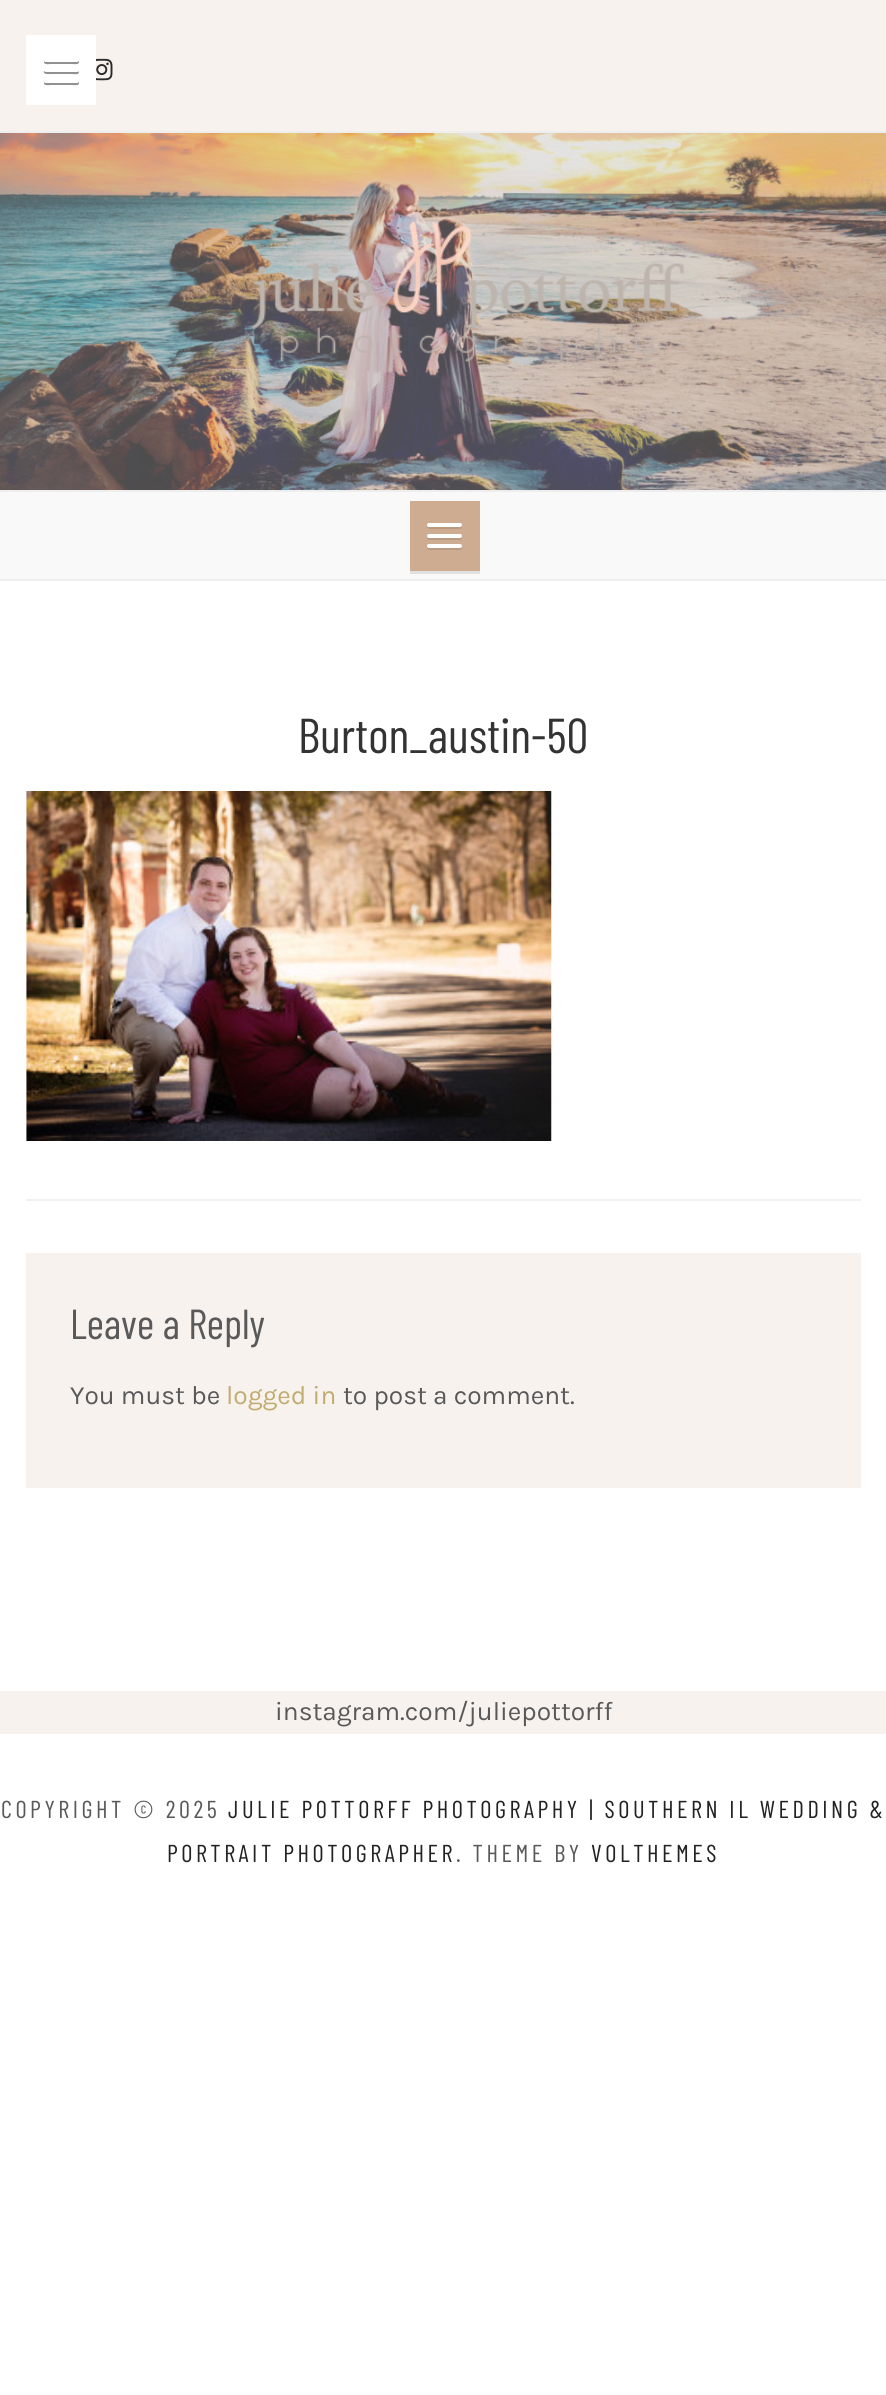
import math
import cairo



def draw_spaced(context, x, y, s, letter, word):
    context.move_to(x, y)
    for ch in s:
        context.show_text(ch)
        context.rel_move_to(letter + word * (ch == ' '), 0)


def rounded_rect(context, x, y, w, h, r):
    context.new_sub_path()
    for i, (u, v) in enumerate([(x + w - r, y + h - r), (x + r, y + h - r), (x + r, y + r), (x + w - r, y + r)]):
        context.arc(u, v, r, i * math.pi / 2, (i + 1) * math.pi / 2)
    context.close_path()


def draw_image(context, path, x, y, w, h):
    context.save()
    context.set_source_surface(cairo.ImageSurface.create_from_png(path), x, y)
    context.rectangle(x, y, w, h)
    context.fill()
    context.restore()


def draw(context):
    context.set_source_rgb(1, 1, 1)
    context.paint()
    context.set_source_rgb(247 / 255, 242 / 255, 238 / 255)
    context.rectangle(0, 0, 886, 131)
    context.fill()
    context.set_source_rgb(238 / 255, 238 / 255, 238 / 255)
    context.rectangle(0, 131, 886, 2)
    context.fill()
    context.set_source_rgb(1, 1, 1)
    context.rectangle(26, 35, 70, 70)
    context.fill()
    context.set_source_rgb(145 / 255, 145 / 255, 145 / 255)
    context.new_path()
    context.move_to(44.5, 61)
    context.line_to(44, 62.5)
    context.curve_to(44.5, 65, 50, 64, 51, 64)
    context.line_to(72, 64)
    context.curve_to(73, 64, 78.5, 65, 79, 62.5)
    context.curve_to(79, 61.5, 79, 61, 78.5, 60.5)
    context.curve_to(77, 62, 72, 61, 72, 61)
    context.curve_to(68.5, 61, 45.5, 62, 44.5, 61)
    context.close_path()
    context.fill()
    context.set_source_rgb(1, 1, 1)
    rounded_rect(context, 44, 58, 35, 4, 2)
    context.fill()
    context.set_source_rgb(145 / 255, 145 / 255, 145 / 255)
    context.new_path()
    context.move_to(44, 71)
    context.curve_to(42.5, 75, 50.5, 74, 51, 74)
    context.line_to(72, 74)
    context.curve_to(73, 74, 78.5, 75, 79, 72.5)
    context.line_to(78.5, 71)
    context.line_to(77.5, 71.5)
    context.line_to(45.5, 71.5)
    context.close_path()
    context.fill()
    context.set_source_rgb(1, 1, 1)
    rounded_rect(context, 44, 68, 35, 4, 2)
    context.fill()
    context.set_source_rgb(145 / 255, 145 / 255, 145 / 255)
    context.new_path()
    context.move_to(44.5, 82)
    context.line_to(44, 83.5)
    context.curve_to(44.5, 86, 50, 85, 51, 85)
    context.line_to(72, 85)
    context.curve_to(73, 85, 78.5, 86, 79, 83.5)
    context.curve_to(79, 82.5, 79, 82, 78.5, 81.5)
    context.curve_to(77, 83, 72, 82, 72, 82)
    context.curve_to(68.5, 82, 45.5, 83, 44.5, 82)
    context.close_path()
    context.fill()
    context.set_source_rgb(1, 1, 1)
    rounded_rect(context, 44, 79, 35, 4, 2)
    context.fill()
    draw_image(context, "images/1.png", 96, 58, 17, 23)
    draw_image(context, "images/2.png", 0, 133, 886, 357)
    draw_image(context, "images/3.png", 251, 204, 434, 159)
    context.set_source_rgb(249 / 255, 249 / 255, 249 / 255)
    context.rectangle(0, 492, 886, 87)
    context.fill()
    context.set_source_rgb(238 / 255, 238 / 255, 238 / 255)
    context.rectangle(0, 490, 886, 2)
    context.fill()
    context.rectangle(0, 579, 886, 2)
    context.fill()
    context.set_source_rgb(224 / 255, 224 / 255, 224 / 255)
    context.new_path()
    context.move_to(410, 570)
    context.line_to(410, 574)
    context.line_to(480, 574)
    context.line_to(480, 504)
    context.line_to(480, 570)
    context.close_path()
    context.fill()
    context.set_source_rgb(206 / 255, 172 / 255, 146 / 255)
    context.rectangle(410, 501, 70, 70)
    context.fill()
    context.set_source_rgb(185 / 255, 155 / 255, 131 / 255)
    context.new_path()
    context.move_to(427.5, 526)
    context.curve_to(425, 530, 434, 529, 434, 529)
    context.line_to(455, 529)
    context.curve_to(455, 529, 464, 530, 461.5, 526)
    context.line_to(460.5, 526.5)
    context.line_to(428.5, 526.5)
    context.close_path()
    context.fill()
    context.set_source_rgb(1, 1, 1)
    rounded_rect(context, 427, 523, 35, 4, 2)
    context.fill()
    context.set_source_rgb(185 / 255, 155 / 255, 131 / 255)
    context.new_path()
    context.move_to(427.5, 536.5)
    context.line_to(427, 538)
    context.curve_to(427, 539, 428, 540, 429, 540)
    context.line_to(460, 540)
    context.curve_to(461, 540, 462, 539, 462, 538)
    context.line_to(461.5, 536.5)
    context.line_to(460.5, 537)
    context.line_to(428.5, 537)
    context.close_path()
    context.fill()
    context.set_source_rgb(1, 1, 1)
    rounded_rect(context, 427, 534, 35, 4, 2)
    context.fill()
    context.set_source_rgb(185 / 255, 155 / 255, 131 / 255)
    context.new_path()
    context.move_to(427.5, 547)
    context.curve_to(425, 551, 434, 550, 434, 550)
    context.line_to(455, 550)
    context.curve_to(455, 550, 464, 551, 461.5, 547)
    context.line_to(460.5, 547.5)
    context.line_to(428.5, 547.5)
    context.close_path()
    context.fill()
    context.set_source_rgb(1, 1, 1)
    rounded_rect(context, 427, 544, 35, 4, 2)
    context.fill()
    context.set_source_rgb(242 / 255, 241 / 255, 241 / 255)
    context.rectangle(26, 1199, 835, 2)
    context.fill()
    draw_image(context, "images/4.png", 26, 791, 526, 350)
    context.set_source_rgb(247 / 255, 242 / 255, 238 / 255)
    context.rectangle(26, 1253, 835, 235)
    context.fill()
    context.rectangle(0, 1691, 886, 43)
    context.fill()
    context.select_font_face("Barlow Condensed")
    context.set_font_size(49)
    context.set_source_rgb(51 / 255, 51 / 255, 51 / 255)
    context.move_to(298, 753)
    context.show_text("Burton_austin-50")
    context.set_font_size(42)
    context.set_source_rgb(89 / 255, 89 / 255, 89 / 255)
    context.move_to(70, 1339)
    context.show_text("Leave a Reply")
    context.select_font_face("Karla")
    context.set_font_size(26.25)
    context.move_to(70, 1404)
    context.show_text("You must be")
    context.set_source_rgb(193 / 255, 172 / 255, 112 / 255)
    context.move_to(226, 1404)
    context.show_text("logged in")
    context.set_source_rgb(89 / 255, 89 / 255, 89 / 255)
    context.move_to(343, 1404)
    context.show_text("to post a comment.")
    context.move_to(275, 1720)
    context.show_text("instagram.com/juliepottorff")
    context.select_font_face("Barlow Condensed")
    context.set_font_size(24.5)
    draw_spaced(context, 1, 1818, "COPYRIGHT © 2025", 3.5, 0)
    context.set_source_rgb(34 / 255, 34 / 255, 34 / 255)
    draw_spaced(context, 228, 1818, "JULIE POTTORFF PHOTOGRAPHY | SOUTHERN IL WEDDING &", 3.5, 0)
    draw_spaced(context, 167, 1862, "PORTRAIT PHOTOGRAPHER", 3.5, 0)
    context.set_source_rgb(89 / 255, 89 / 255, 89 / 255)
    draw_spaced(context, 456, 1862, ". THEME BY", 3.5, 0)
    context.set_source_rgb(34 / 255, 34 / 255, 34 / 255)
    draw_spaced(context, 591, 1862, "VOLTHEMES", 3.5, 0)


surface = cairo.ImageSurface(cairo.Format.RGB24, 886, 2395)
context = cairo.Context(surface)
options = cairo.FontOptions()
options.set_hint_metrics(cairo.HintMetrics.OFF)
options.set_hint_style(cairo.HintStyle.NONE)
context.set_font_options(options)
context.set_miter_limit(4)
draw(context)
surface.write_to_png("out.png")
